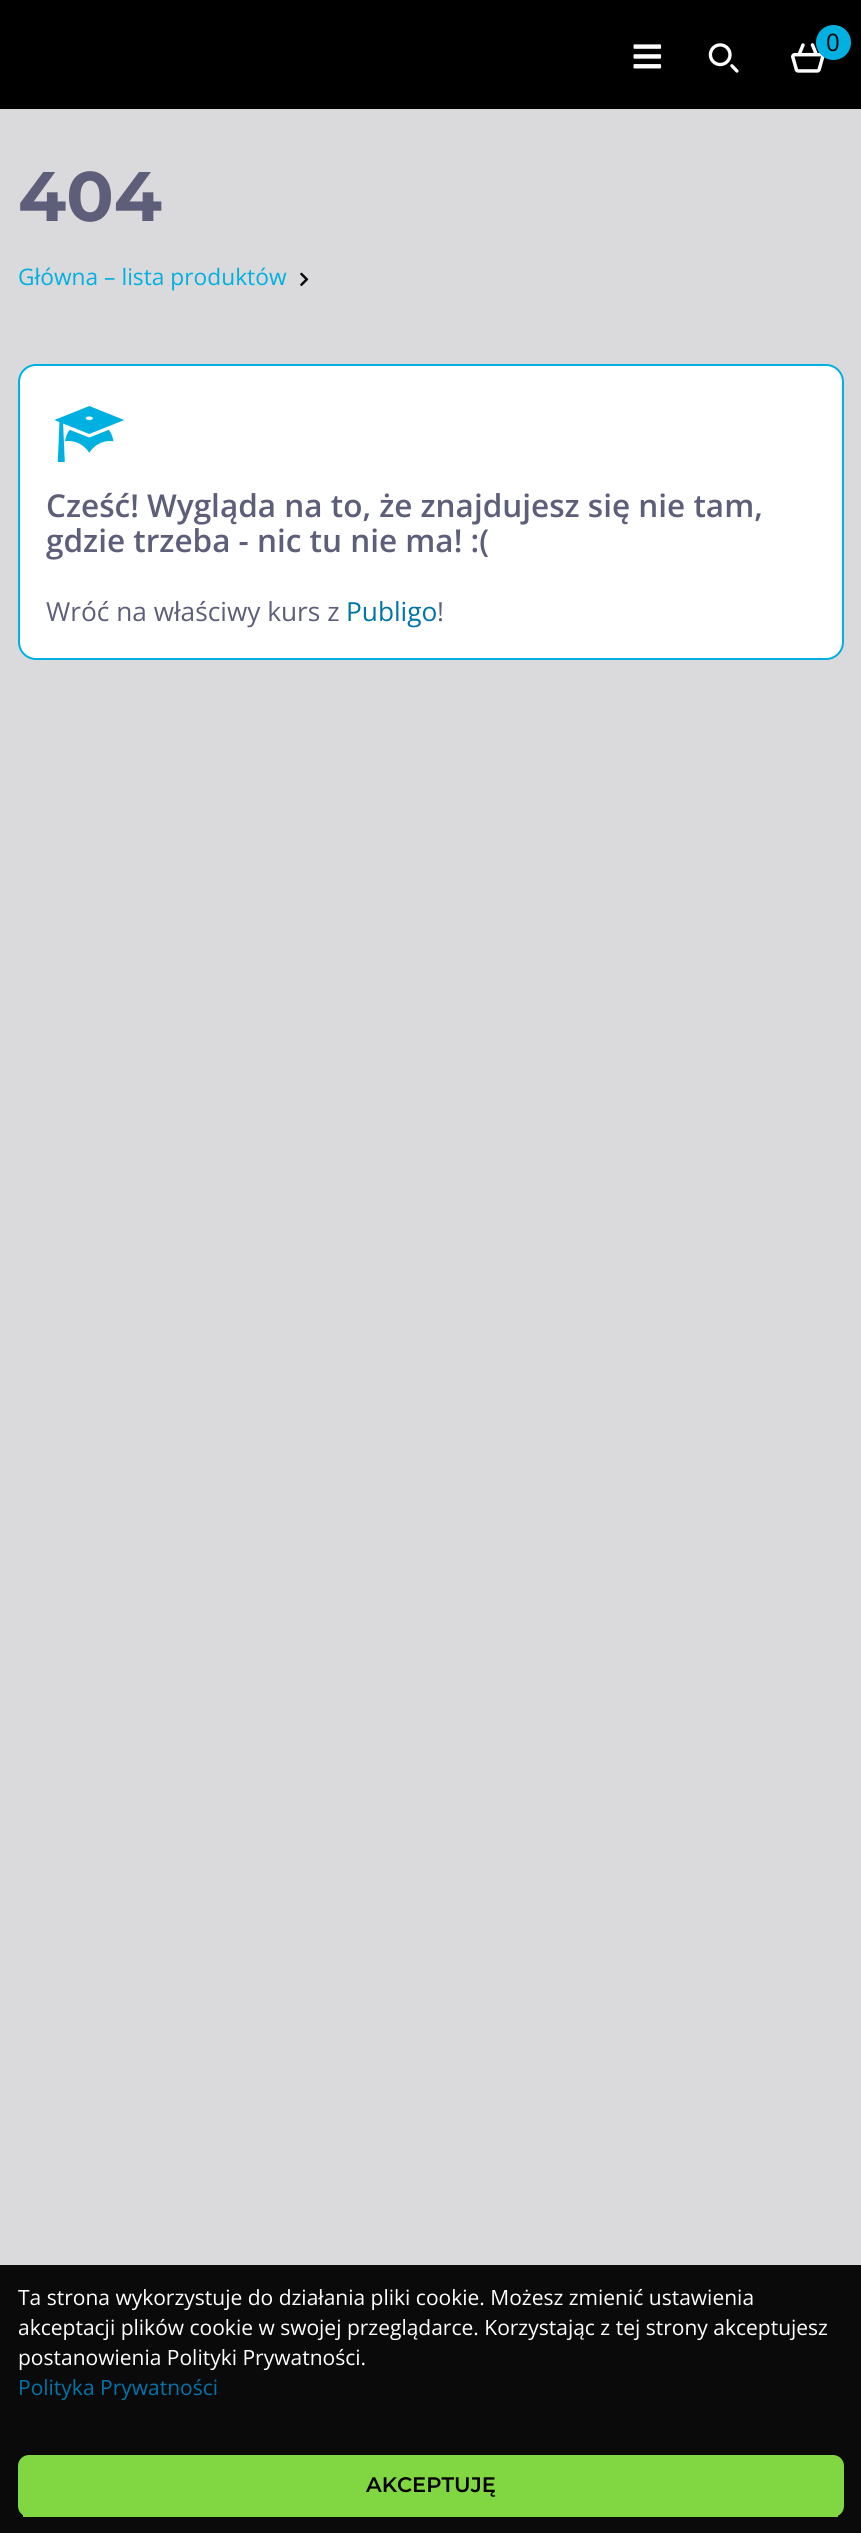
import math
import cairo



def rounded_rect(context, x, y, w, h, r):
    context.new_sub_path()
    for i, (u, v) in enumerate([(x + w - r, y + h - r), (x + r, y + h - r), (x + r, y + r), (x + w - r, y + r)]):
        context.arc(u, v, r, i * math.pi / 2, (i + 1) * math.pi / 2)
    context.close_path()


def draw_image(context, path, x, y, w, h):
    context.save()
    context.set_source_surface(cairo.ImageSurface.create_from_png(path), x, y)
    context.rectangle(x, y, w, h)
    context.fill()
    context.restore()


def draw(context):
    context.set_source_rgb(218 / 255, 217 / 255, 219 / 255)
    context.paint()
    context.set_source_rgb(0, 0, 0)
    context.rectangle(0, 0, 861, 109)
    context.fill()
    draw_image(context, "images/1.png", 633, 44, 29, 25)
    draw_image(context, "images/2.png", 708, 43, 31, 30)
    draw_image(context, "images/3.png", 791, 43, 34, 30)
    context.set_source_rgb(0, 176 / 255, 224 / 255)
    context.arc(833.5, 42.5, 17.5, 0, 2 * math.pi)
    context.fill()
    draw_image(context, "images/4.png", 300, 272, 9, 14)
    context.set_source_rgb(1, 1, 1)
    rounded_rect(context, 19, 365, 824, 294, 17)
    context.fill_preserve()
    context.set_source_rgb(0, 176 / 255, 224 / 255)
    context.stroke()
    draw_image(context, "images/5.png", 54, 406, 71, 56)
    context.set_source_rgb(10 / 255, 10 / 255, 10 / 255)
    context.rectangle(0, 2265, 861, 268)
    context.fill()
    context.set_source_rgb(129 / 255, 215 / 255, 66 / 255)
    rounded_rect(context, 18, 2455, 826, 62, 11)
    context.fill()
    context.rectangle(23, 2515, 815, 2)
    context.fill()
    context.select_font_face("Open Sans")
    context.set_font_size(24)
    context.set_source_rgb(0, 0, 0)
    context.move_to(826, 51)
    context.show_text("0")
    context.select_font_face("Montserrat", cairo.FontSlant.NORMAL, cairo.FontWeight.BOLD)
    context.set_font_size(70)
    context.set_source_rgb(93 / 255, 94 / 255, 121 / 255)
    context.move_to(18, 221)
    context.show_text("404")
    context.select_font_face("Open Sans")
    context.set_font_size(22.75)
    context.set_source_rgb(0, 176 / 255, 224 / 255)
    context.move_to(18, 285)
    context.show_text("Główna – lista produktów")
    context.select_font_face("Open Sans SemiBold")
    context.set_font_size(31.5)
    context.set_source_rgb(93 / 255, 94 / 255, 121 / 255)
    context.move_to(46, 517)
    context.show_text("Cześć! Wygląda na to, że znajdujesz się nie tam,")
    context.move_to(46, 552)
    context.show_text("gdzie trzeba - nic tu nie ma! :(")
    context.select_font_face("Open Sans")
    context.set_font_size(26.25)
    context.move_to(46, 621)
    context.show_text("Wróć na właściwy kurs z")
    context.set_source_rgb(0, 115 / 255, 168 / 255)
    context.move_to(346, 621)
    context.show_text("Publigo")
    context.set_source_rgb(93 / 255, 94 / 255, 121 / 255)
    context.move_to(437, 621)
    context.show_text("!")
    context.set_font_size(21)
    context.set_source_rgb(1, 1, 1)
    context.move_to(18, 2305)
    context.show_text("Ta strona wykorzystuje do działania pliki cookie. Możesz zmienić ustawienia")
    context.move_to(18, 2335)
    context.show_text("akceptacji plików cookie w swojej przeglądarce. Korzystając z tej strony akceptujesz")
    context.move_to(18, 2365)
    context.show_text("postanowienia Polityki Prywatności.")
    context.set_source_rgb(0, 115 / 255, 168 / 255)
    context.move_to(18, 2395)
    context.show_text("Polityka Prywatności")
    context.select_font_face("Montserrat SemiBold")
    context.set_source_rgb(0, 0, 0)
    context.move_to(366, 2492)
    context.show_text("AKCEPTUJĘ")


surface = cairo.ImageSurface(cairo.Format.RGB24, 861, 2533)
context = cairo.Context(surface)
options = cairo.FontOptions()
options.set_hint_metrics(cairo.HintMetrics.OFF)
options.set_hint_style(cairo.HintStyle.NONE)
context.set_font_options(options)
context.set_miter_limit(4)
draw(context)
surface.write_to_png("out.png")
